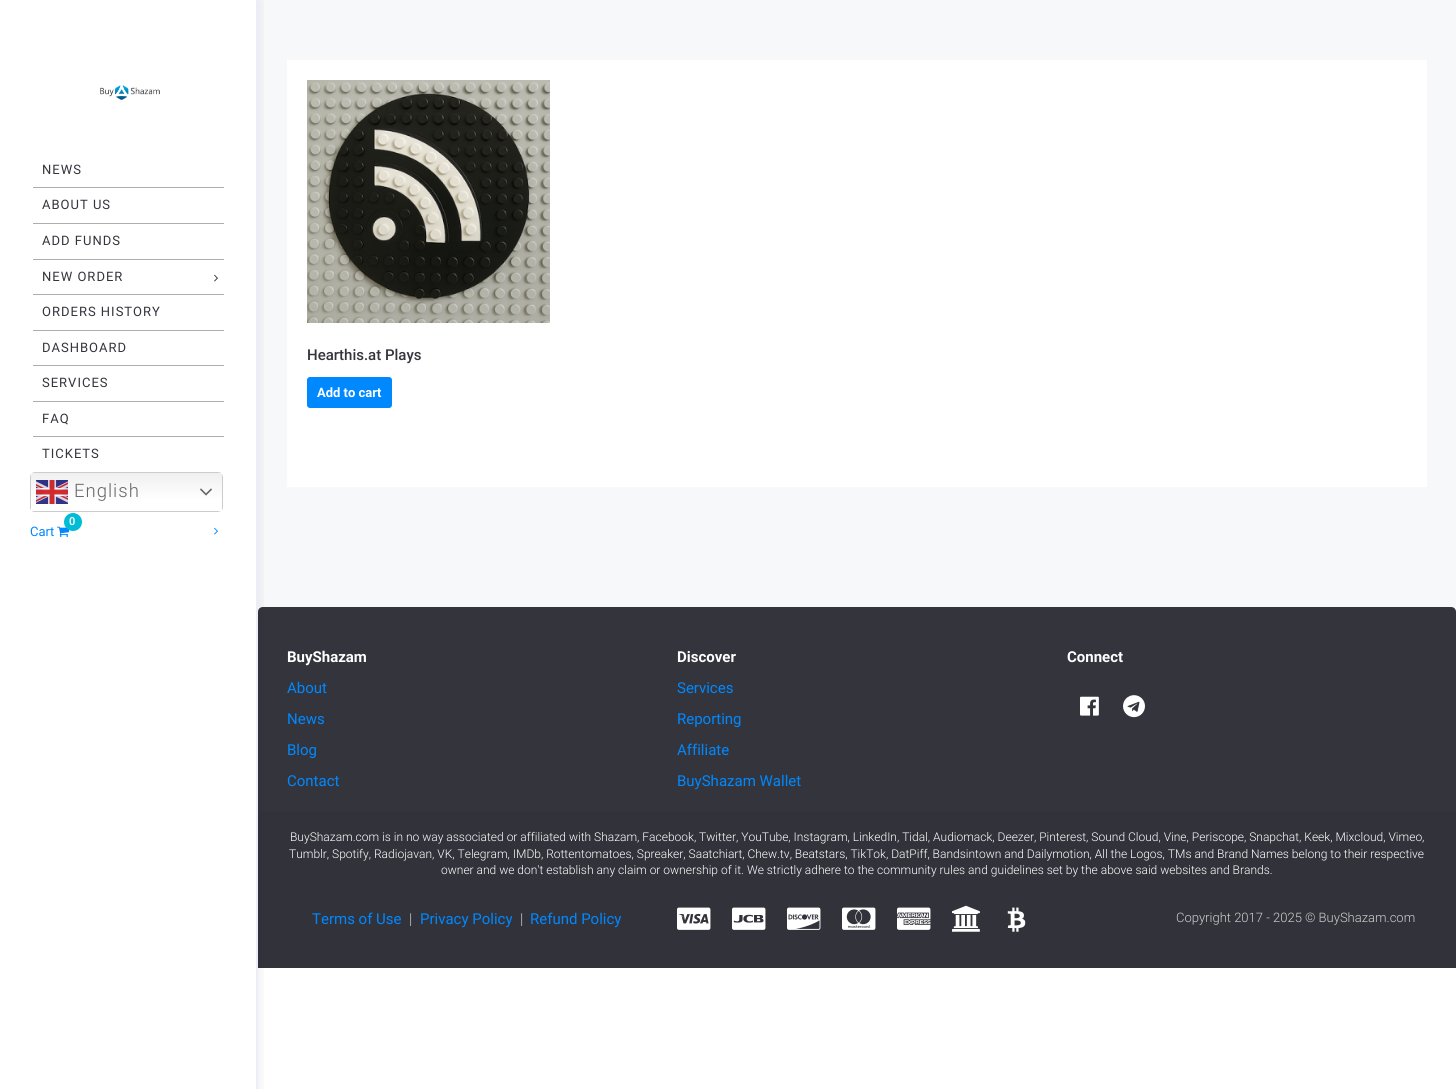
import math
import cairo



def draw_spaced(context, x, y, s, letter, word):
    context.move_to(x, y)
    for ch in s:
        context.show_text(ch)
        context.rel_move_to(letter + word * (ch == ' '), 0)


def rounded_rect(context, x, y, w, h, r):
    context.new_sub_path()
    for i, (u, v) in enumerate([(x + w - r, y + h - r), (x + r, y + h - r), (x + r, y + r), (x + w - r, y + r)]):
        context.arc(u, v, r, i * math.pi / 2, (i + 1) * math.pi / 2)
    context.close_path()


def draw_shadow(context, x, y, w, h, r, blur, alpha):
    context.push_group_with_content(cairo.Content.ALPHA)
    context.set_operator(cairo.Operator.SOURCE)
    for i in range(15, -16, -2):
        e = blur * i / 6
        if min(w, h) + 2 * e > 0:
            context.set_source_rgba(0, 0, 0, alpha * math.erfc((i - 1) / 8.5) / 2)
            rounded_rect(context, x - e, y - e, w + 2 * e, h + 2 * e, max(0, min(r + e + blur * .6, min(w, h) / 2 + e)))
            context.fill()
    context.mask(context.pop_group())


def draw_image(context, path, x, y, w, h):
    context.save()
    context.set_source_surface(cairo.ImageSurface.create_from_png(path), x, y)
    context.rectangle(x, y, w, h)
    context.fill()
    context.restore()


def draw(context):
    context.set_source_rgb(1, 1, 1)
    context.paint()
    context.set_source_rgb(247 / 255, 248 / 255, 250 / 255)
    context.rectangle(258, 0, 1198, 607)
    context.fill()
    context.set_source_rgb(52 / 255, 52 / 255, 60 / 255)
    context.new_path()
    context.move_to(263, 607)
    context.line_to(1451, 607)
    context.curve_to(1454, 607, 1456, 609, 1456, 612)
    context.line_to(1456, 812)
    context.line_to(258, 812)
    context.line_to(258, 612)
    context.curve_to(258, 609, 260, 607, 263, 607)
    context.close_path()
    context.fill()
    context.set_source_rgb(50 / 255, 50 / 255, 58 / 255)
    context.rectangle(258, 812, 1198, 156)
    context.fill()
    context.save()
    context.rectangle(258, 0, 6, 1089)
    context.clip()
    context.set_source_rgb(0, 0, 50 / 255)
    draw_shadow(context, 0, 0, 258, 1089, 0, 7.5, 0.09)
    context.restore()
    context.set_source_rgb(235 / 255, 238 / 255, 246 / 255)
    context.rectangle(256, 0, 2, 1089)
    context.fill()
    draw_image(context, "images/1.png", 100, 85, 60, 15)
    context.set_source_rgb(173 / 255, 173 / 255, 173 / 255)
    context.rectangle(33, 187, 191, 1)
    context.fill()
    context.rectangle(33, 223, 191, 1)
    context.fill()
    context.rectangle(33, 259, 191, 1)
    context.fill()
    draw_image(context, "images/2.png", 214, 274, 4, 8)
    context.rectangle(33, 294, 191, 1)
    context.fill()
    context.rectangle(33, 330, 191, 1)
    context.fill()
    context.rectangle(33, 365, 191, 1)
    context.fill()
    context.rectangle(33, 401, 191, 1)
    context.fill()
    context.rectangle(33, 436, 191, 1)
    context.fill()
    gradient = cairo.LinearGradient(127, 472, 127, 512)
    gradient.add_color_stop_rgba(0, 239 / 255, 239 / 255, 239 / 255, 1)
    gradient.add_color_stop_rgba(0.7, 1, 1, 1, 1)
    context.set_source(gradient)
    rounded_rect(context, 30, 472, 193, 40, 5)
    context.fill()
    context.set_source_rgb(204 / 255, 204 / 255, 204 / 255)
    context.set_fill_rule(cairo.FillRule.EVEN_ODD)
    context.new_path()
    context.move_to(30, 477)
    context.line_to(30, 507)
    context.curve_to(30, 508, 30, 509, 31, 510)
    context.line_to(31, 474)
    context.close_path()
    context.move_to(35, 472)
    context.line_to(32, 473)
    context.line_to(221, 473)
    context.line_to(218, 472)
    context.close_path()
    context.move_to(223, 477)
    context.line_to(222, 474)
    context.line_to(222, 510)
    context.curve_to(223, 509, 223, 508, 223, 507)
    context.close_path()
    context.move_to(218, 512)
    context.line_to(221, 511)
    context.line_to(32, 511)
    context.curve_to(33, 512, 34, 512, 35, 512)
    context.close_path()
    context.fill()
    draw_image(context, "images/3.png", 36, 480, 32, 24)
    draw_image(context, "images/4.png", 200, 488, 12, 8)
    draw_image(context, "images/5.png", 57, 526, 13, 11)
    context.set_source_rgb(0, 188 / 255, 212 / 255)
    context.arc(73, 522, 9, 0, 2 * math.pi)
    context.fill()
    draw_image(context, "images/6.png", 214, 527, 4, 8)
    context.set_source_rgb(1, 1, 1)
    context.rectangle(287, 60, 1140, 427)
    context.fill()
    draw_image(context, "images/7.png", 307, 80, 243, 243)
    context.set_source_rgb(0, 136 / 255, 1)
    rounded_rect(context, 307, 377, 85, 31, 3)
    context.fill()
    draw_image(context, "images/8.png", 1080, 696, 19, 20)
    draw_image(context, "images/9.png", 1123, 695, 22, 23)
    draw_image(context, "images/10.png", 677, 907, 34, 23)
    draw_image(context, "images/11.png", 732, 907, 34, 23)
    draw_image(context, "images/12.png", 787, 907, 34, 23)
    draw_image(context, "images/13.png", 842, 907, 34, 23)
    draw_image(context, "images/14.png", 897, 907, 34, 23)
    draw_image(context, "images/15.png", 952, 905, 28, 27)
    draw_image(context, "images/16.png", 1007, 907, 19, 25)
    context.select_font_face("Roboto")
    context.set_font_size(13)
    context.set_source_rgb(52 / 255, 52 / 255, 60 / 255)
    draw_spaced(context, 42, 174, "NEWS", 1, 0)
    draw_spaced(context, 42, 209, "ABOUT US", 1, 0)
    draw_spaced(context, 42, 245, "ADD FUNDS", 1, 0)
    draw_spaced(context, 42, 281, "NEW ORDER", 1, 0)
    draw_spaced(context, 42, 316, "ORDERS HISTORY", 1, 0)
    draw_spaced(context, 42, 352, "DASHBOARD", 1, 0)
    draw_spaced(context, 42, 387, "SERVICES", 1, 0)
    draw_spaced(context, 42, 423, "FAQ", 1, 0)
    draw_spaced(context, 42, 458, "TICKETS", 1, 0)
    context.select_font_face("Roboto Light")
    context.set_font_size(18.5)
    context.set_source_rgb(102 / 255, 102 / 255, 102 / 255)
    draw_spaced(context, 74, 497, "English", 1, 0)
    context.select_font_face("Roboto SemiBold")
    context.set_font_size(11)
    context.set_source_rgb(1, 1, 1)
    context.move_to(69, 525)
    context.show_text("0")
    context.select_font_face("Roboto")
    context.set_font_size(13)
    context.set_source_rgb(0, 136 / 255, 1)
    context.move_to(30, 536)
    context.show_text("Cart")
    context.select_font_face("Roboto Medium")
    context.set_font_size(15)
    context.set_source_rgb(52 / 255, 52 / 255, 60 / 255)
    context.move_to(307, 360)
    context.show_text("Hearthis.at Plays")
    context.select_font_face("Roboto", cairo.FontSlant.NORMAL, cairo.FontWeight.BOLD)
    context.set_font_size(13)
    context.set_source_rgb(1, 1, 1)
    context.move_to(317, 397)
    context.show_text("Add to cart")
    context.set_font_size(15)
    context.move_to(287, 662)
    context.show_text("BuyShazam")
    context.select_font_face("Roboto")
    context.set_source_rgb(0, 136 / 255, 1)
    context.move_to(287, 693)
    context.show_text("About")
    context.move_to(287, 724)
    context.show_text("News")
    context.move_to(287, 755)
    context.show_text("Blog")
    context.move_to(287, 786)
    context.show_text("Contact")
    context.select_font_face("Roboto", cairo.FontSlant.NORMAL, cairo.FontWeight.BOLD)
    context.set_source_rgb(1, 1, 1)
    context.move_to(677, 662)
    context.show_text("Discover")
    context.select_font_face("Roboto")
    context.set_source_rgb(0, 136 / 255, 1)
    context.move_to(677, 693)
    context.show_text("Services")
    context.move_to(677, 724)
    context.show_text("Reporting")
    context.move_to(677, 755)
    context.show_text("Affiliate")
    context.move_to(677, 786)
    context.show_text("BuyShazam Wallet")
    context.select_font_face("Roboto", cairo.FontSlant.NORMAL, cairo.FontWeight.BOLD)
    context.set_source_rgb(1, 1, 1)
    context.move_to(1067, 662)
    context.show_text("Connect")
    context.select_font_face("Roboto Light")
    context.set_font_size(12)
    context.move_to(290, 841)
    context.show_text("BuyShazam.com is in no way associated or affiliated with Shazam, Facebook, Twitter, YouTube, Instagram, LinkedIn, Tidal, Audiomack, Deezer, Pinterest, Sound Cloud, Vine, Periscope, Snapchat, Keek, Mixcloud, Vimeo,")
    context.move_to(289, 858)
    context.show_text("Tumblr, Spotify, Radiojavan, VK, Telegram, IMDb, Rottentomatoes, Spreaker, Saatchiart, Chew.tv, Beatstars, TikTok, DatPiff, Bandsintown and Dailymotion, All the Logos, TMs and Brand Names belong to their respective")
    context.move_to(441, 874)
    context.show_text("owner and we don't establish any claim or ownership of it. We strictly adhere to the community rules and guidelines set by the above said websites and Brands.")
    context.select_font_face("Roboto")
    context.set_font_size(15)
    context.set_source_rgb(0, 136 / 255, 1)
    context.move_to(312, 924)
    context.show_text("Terms of Use")
    context.select_font_face("Roboto Light")
    context.set_source_rgb(207 / 255, 207 / 255, 207 / 255)
    context.move_to(409, 924)
    context.show_text("|")
    context.select_font_face("Roboto")
    context.set_source_rgb(0, 136 / 255, 1)
    context.move_to(420, 924)
    context.show_text("Privacy Policy")
    context.select_font_face("Roboto Light")
    context.set_source_rgb(207 / 255, 207 / 255, 207 / 255)
    context.move_to(520, 924)
    context.show_text("|")
    context.select_font_face("Roboto")
    context.set_source_rgb(0, 136 / 255, 1)
    context.move_to(530, 924)
    context.show_text("Refund Policy")
    context.select_font_face("Roboto Light")
    context.set_font_size(13)
    context.set_source_rgb(207 / 255, 207 / 255, 207 / 255)
    context.move_to(1176, 922)
    context.show_text("Copyright 2017 - 2025 © BuyShazam.com")


surface = cairo.ImageSurface(cairo.Format.RGB24, 1456, 1089)
context = cairo.Context(surface)
options = cairo.FontOptions()
options.set_hint_metrics(cairo.HintMetrics.OFF)
options.set_hint_style(cairo.HintStyle.NONE)
context.set_font_options(options)
context.set_miter_limit(4)
draw(context)
surface.write_to_png("out.png")
